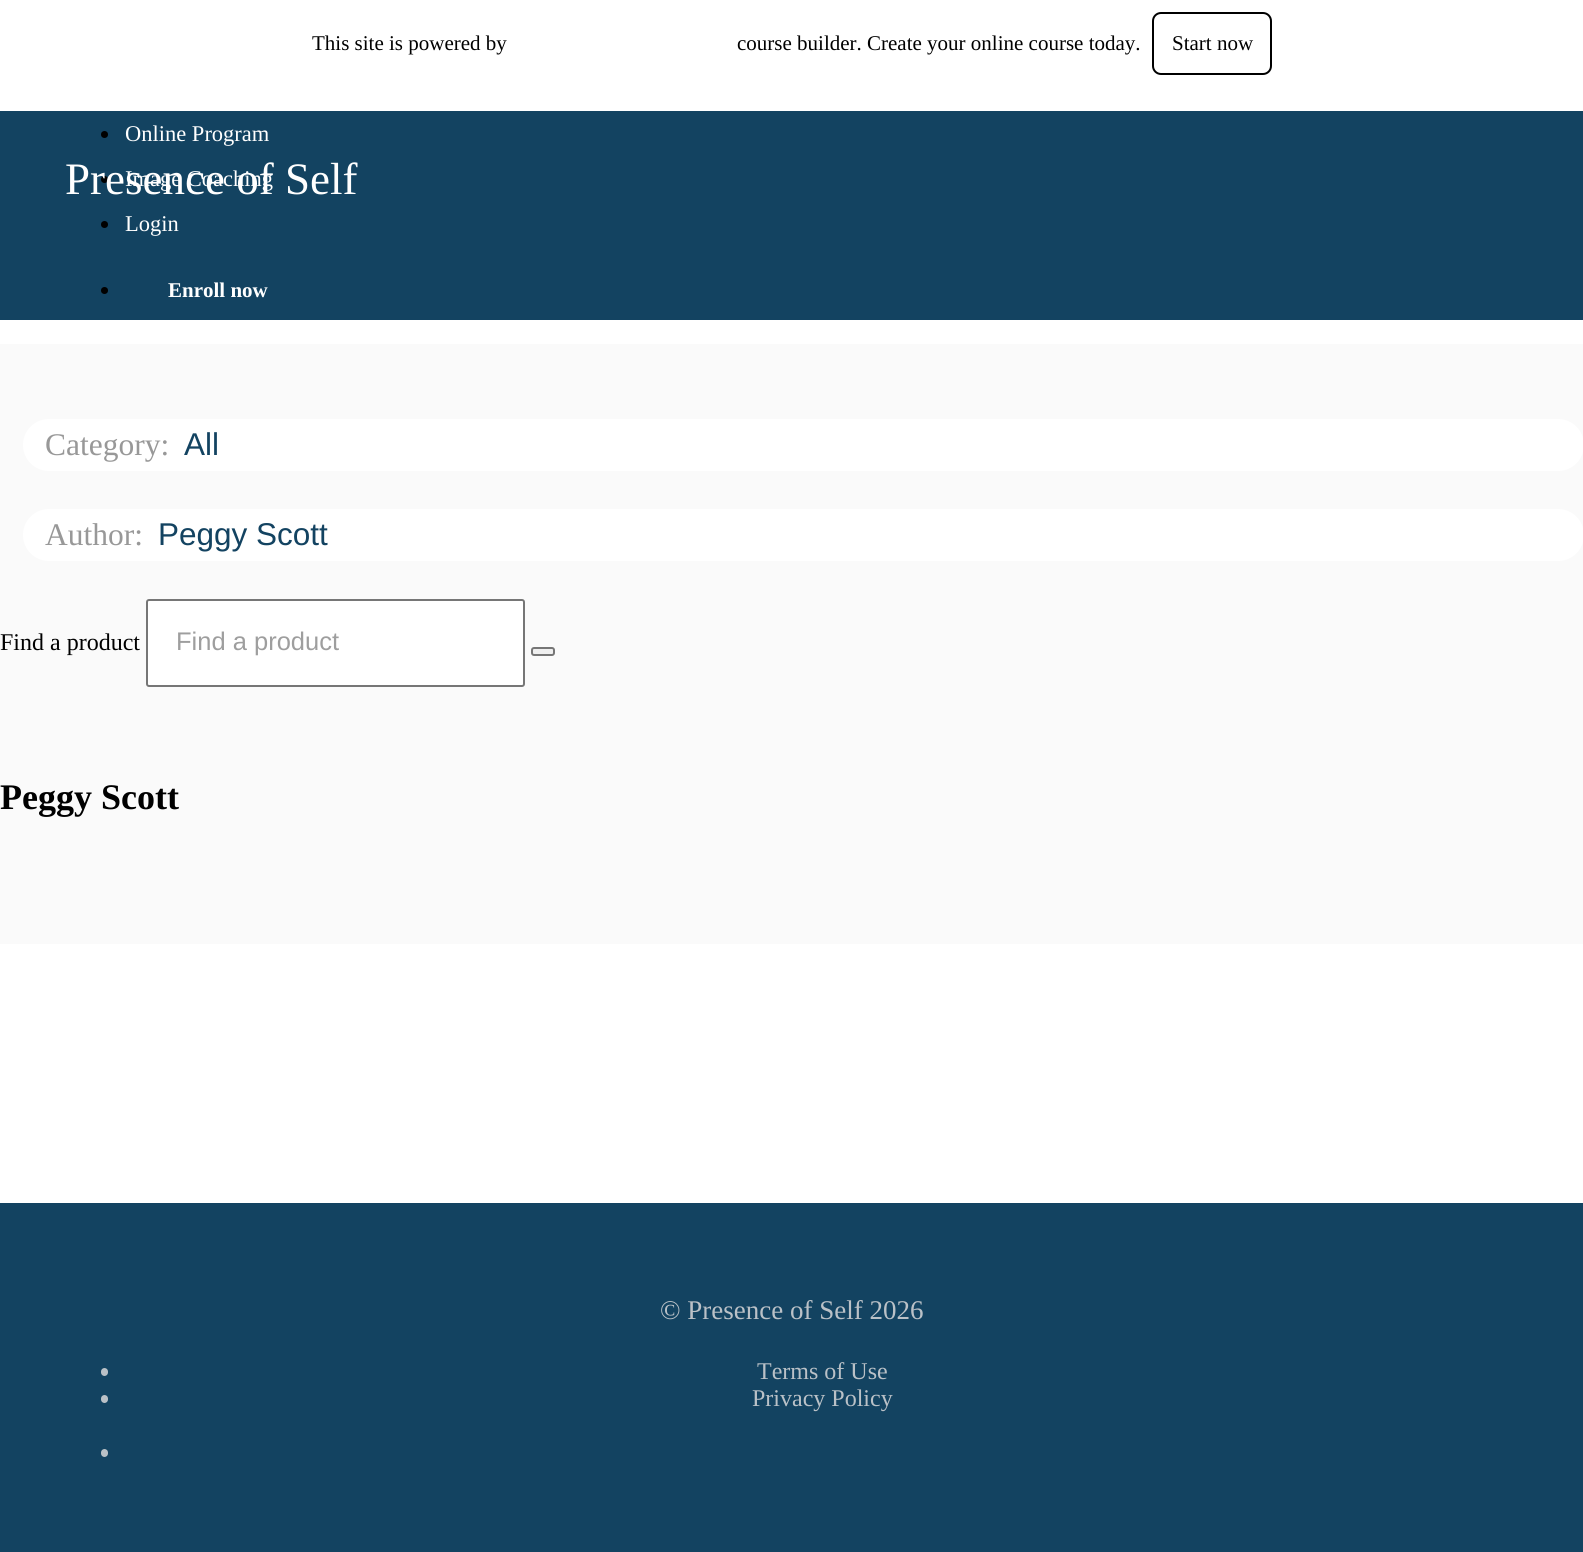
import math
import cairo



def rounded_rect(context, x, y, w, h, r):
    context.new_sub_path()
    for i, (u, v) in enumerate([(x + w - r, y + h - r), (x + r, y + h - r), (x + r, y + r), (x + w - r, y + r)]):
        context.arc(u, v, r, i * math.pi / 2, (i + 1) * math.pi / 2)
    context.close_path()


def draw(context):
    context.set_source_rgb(1, 1, 1)
    context.paint()
    rounded_rect(context, 1153, 13, 118, 61, 8)
    context.set_source_rgb(0, 0, 0)
    context.stroke()
    context.set_source_rgb(19 / 255, 67 / 255, 97 / 255)
    context.rectangle(0, 111, 1583, 209)
    context.fill()
    context.set_source_rgb(0, 0, 0)
    context.arc(104.5, 134.5, 3.5, 0, 2 * math.pi)
    context.fill()
    context.arc(104.5, 179.5, 3.5, 0, 2 * math.pi)
    context.fill()
    context.arc(104.5, 224.5, 3.5, 0, 2 * math.pi)
    context.fill()
    context.arc(104.5, 290.5, 3.5, 0, 2 * math.pi)
    context.fill()
    context.set_source_rgb(250 / 255, 250 / 255, 250 / 255)
    context.rectangle(0, 344, 1583, 600)
    context.fill()
    context.set_source_rgb(1, 1, 1)
    rounded_rect(context, 23, 419, 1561, 52, 26)
    context.fill()
    rounded_rect(context, 23, 509, 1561, 52, 26)
    context.fill()
    rounded_rect(context, 147, 600, 377, 86, 2)
    context.fill_preserve()
    context.set_source_rgb(118 / 255, 118 / 255, 118 / 255)
    context.stroke()
    context.set_source_rgb(239 / 255, 239 / 255, 239 / 255)
    rounded_rect(context, 532, 648, 22, 7, 2)
    context.fill_preserve()
    context.set_source_rgb(118 / 255, 118 / 255, 118 / 255)
    context.stroke()
    context.set_source_rgb(19 / 255, 67 / 255, 97 / 255)
    context.rectangle(0, 1203, 1583, 349)
    context.fill()
    context.set_source_rgb(186 / 255, 193 / 255, 199 / 255)
    rounded_rect(context, 101, 1368, 7, 8, 3.5)
    context.fill()
    rounded_rect(context, 101, 1395, 7, 8, 3.5)
    context.fill()
    rounded_rect(context, 101, 1449, 7, 8, 3.5)
    context.fill()
    context.select_font_face("Liberation Serif")
    context.set_font_size(21)
    context.set_source_rgb(0, 0, 0)
    context.move_to(312, 50)
    context.show_text("This site is powered by")
    context.move_to(737, 50)
    context.show_text("course builder. Create your online course today.")
    context.move_to(1172, 50)
    context.show_text("Start now")
    context.set_font_size(22.5)
    context.set_source_rgb(1, 1, 1)
    context.move_to(125, 141)
    context.show_text("Online Program")
    context.move_to(125, 186)
    context.show_text("Image Coaching")
    context.move_to(125, 231)
    context.show_text("Login")
    context.select_font_face("Liberation Serif", cairo.FontSlant.NORMAL, cairo.FontWeight.BOLD)
    context.set_font_size(21)
    context.move_to(168, 297)
    context.show_text("Enroll now")
    context.select_font_face("Liberation Serif")
    context.set_font_size(45)
    context.move_to(65, 194)
    context.show_text("Presence of Self")
    context.set_font_size(31.5)
    context.set_source_rgb(152 / 255, 152 / 255, 152 / 255)
    context.move_to(45, 455)
    context.show_text("Category:")
    context.select_font_face("Liberation Sans")
    context.set_source_rgb(19 / 255, 67 / 255, 97 / 255)
    context.move_to(184, 455)
    context.show_text("All")
    context.select_font_face("Liberation Serif")
    context.set_source_rgb(152 / 255, 152 / 255, 152 / 255)
    context.move_to(45, 545)
    context.show_text("Author:")
    context.select_font_face("Liberation Sans")
    context.set_source_rgb(19 / 255, 67 / 255, 97 / 255)
    context.move_to(158, 545)
    context.show_text("Peggy Scott")
    context.select_font_face("Liberation Serif")
    context.set_font_size(24)
    context.set_source_rgb(0, 0, 0)
    context.move_to(0, 650)
    context.show_text("Find a product")
    context.select_font_face("Liberation Sans")
    context.set_font_size(25.5)
    context.set_source_rgb(158 / 255, 158 / 255, 158 / 255)
    context.move_to(176, 650)
    context.show_text("Find a product")
    context.select_font_face("Liberation Serif", cairo.FontSlant.NORMAL, cairo.FontWeight.BOLD)
    context.set_font_size(36)
    context.set_source_rgb(0, 0, 0)
    context.move_to(0, 809)
    context.show_text("Peggy Scott")
    context.select_font_face("Liberation Serif")
    context.set_font_size(27)
    context.set_source_rgb(186 / 255, 193 / 255, 199 / 255)
    context.move_to(660, 1319)
    context.show_text("© Presence of Self 2026")
    context.set_font_size(24)
    context.move_to(757, 1379)
    context.show_text("Terms of Use")
    context.move_to(752, 1406)
    context.show_text("Privacy Policy")


surface = cairo.ImageSurface(cairo.Format.RGB24, 1583, 1552)
context = cairo.Context(surface)
options = cairo.FontOptions()
options.set_hint_metrics(cairo.HintMetrics.OFF)
options.set_hint_style(cairo.HintStyle.NONE)
context.set_font_options(options)
context.set_miter_limit(4)
draw(context)
surface.write_to_png("out.png")
